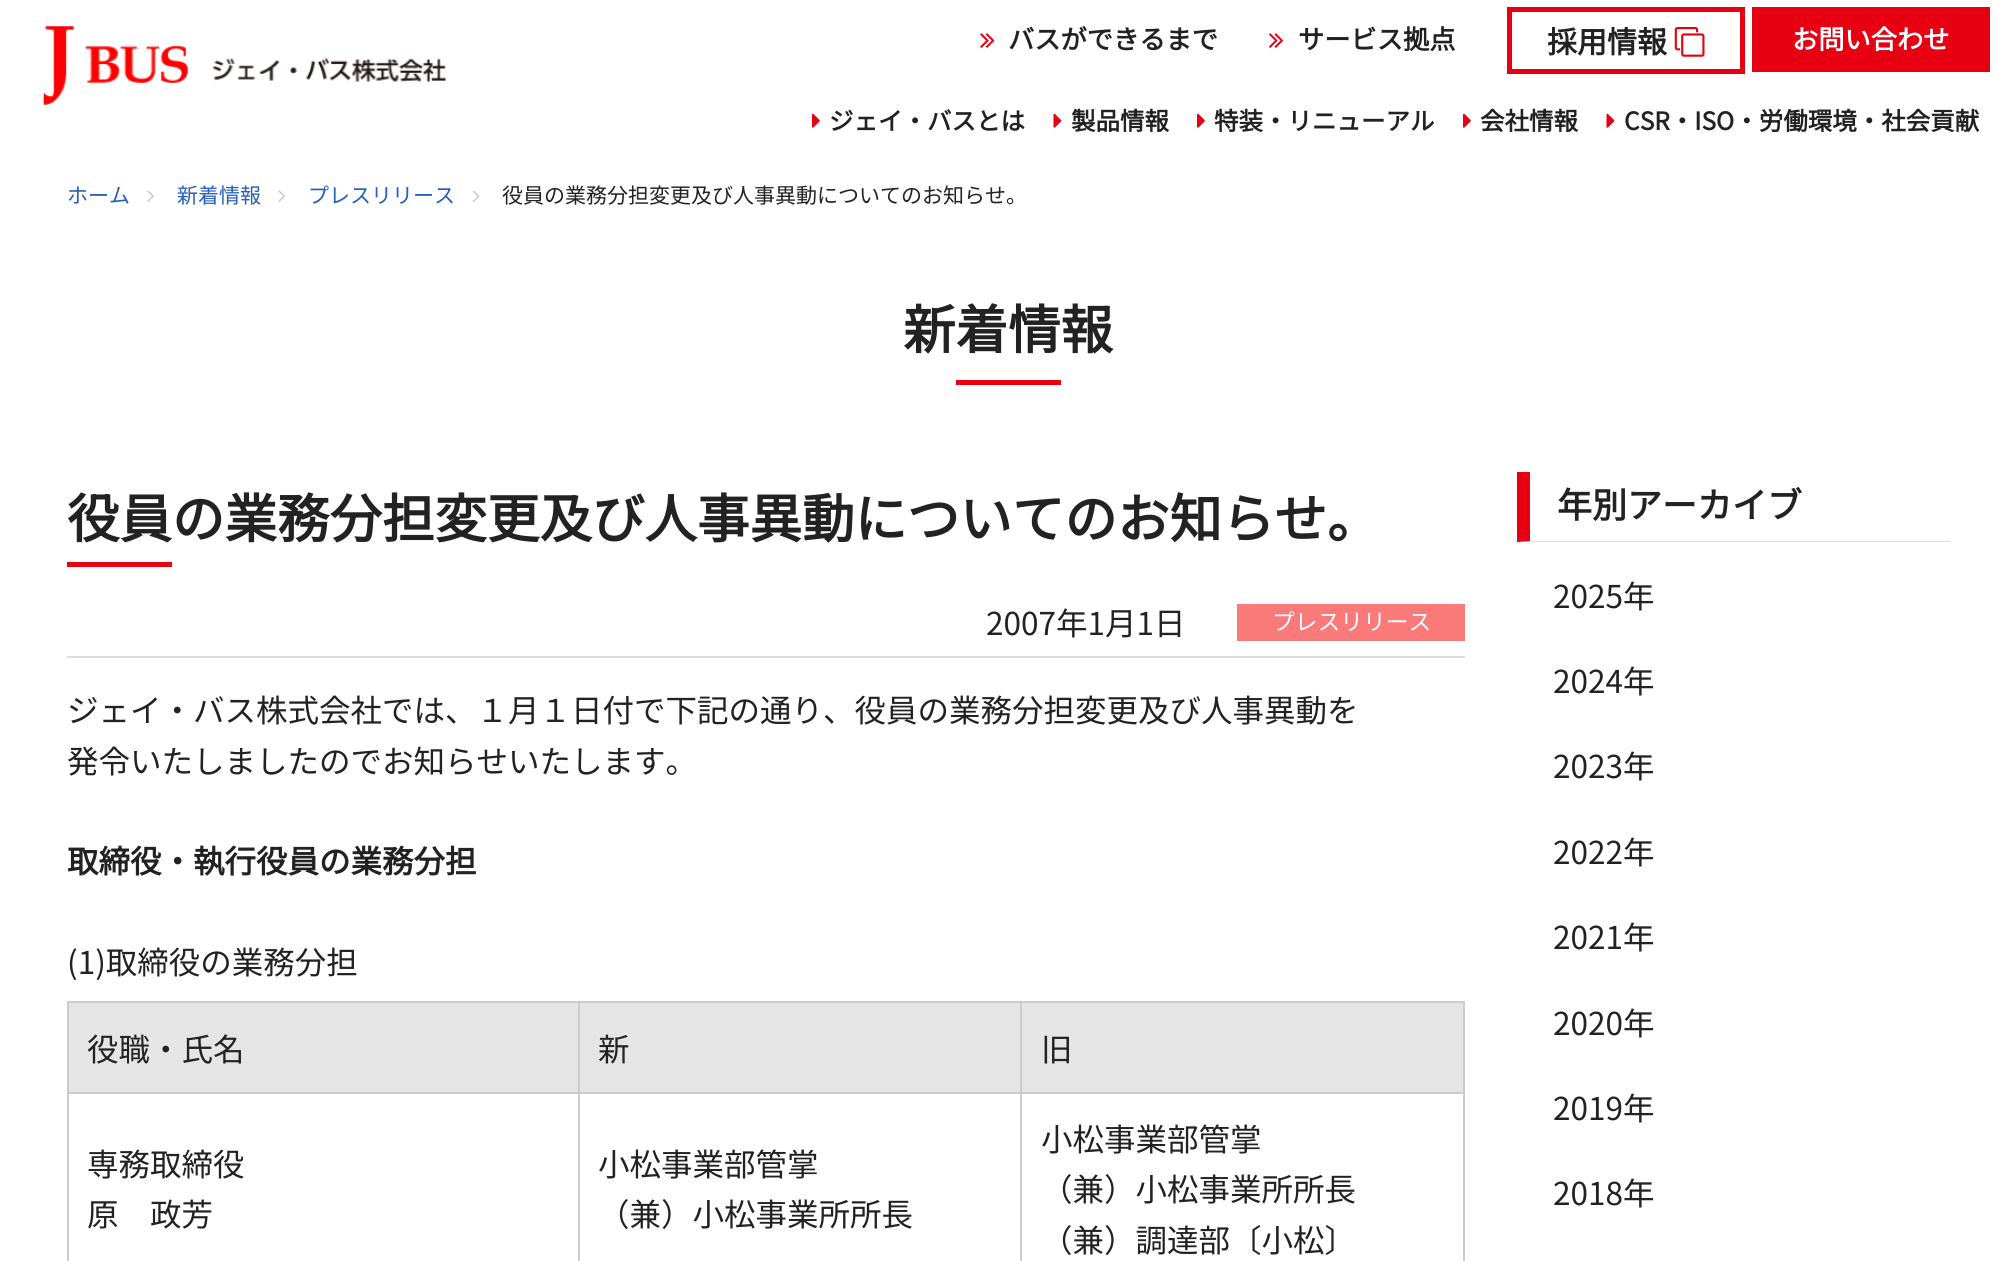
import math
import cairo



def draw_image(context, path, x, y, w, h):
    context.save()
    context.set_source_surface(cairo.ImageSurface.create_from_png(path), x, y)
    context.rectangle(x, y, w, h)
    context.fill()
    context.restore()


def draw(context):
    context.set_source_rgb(1, 1, 1)
    context.paint()
    draw_image(context, "images/1.png", 43, 26, 404, 80)
    draw_image(context, "images/2.png", 980, 33, 15, 15)
    draw_image(context, "images/3.png", 1269, 33, 14, 15)
    context.rectangle(1509.5, 9.5, 233, 62)
    context.set_source_rgb(230 / 255, 0, 18 / 255)
    context.set_line_width(5)
    context.stroke()
    draw_image(context, "images/4.png", 1674, 27, 31, 30)
    context.rectangle(1752, 7, 238, 65)
    context.fill()
    draw_image(context, "images/5.png", 812, 113, 8, 15)
    draw_image(context, "images/6.png", 1053, 113, 9, 15)
    draw_image(context, "images/5.png", 1197, 113, 8, 15)
    draw_image(context, "images/5.png", 1463, 113, 8, 15)
    draw_image(context, "images/6.png", 1606, 113, 9, 15)
    draw_image(context, "images/7.png", 147, 190, 7, 12)
    draw_image(context, "images/8.png", 278, 190, 8, 12)
    draw_image(context, "images/9.png", 472, 190, 8, 12)
    context.rectangle(956, 380, 105, 5)
    context.fill()
    context.rectangle(67, 562, 105, 5)
    context.fill()
    context.set_source_rgb(221 / 255, 221 / 255, 221 / 255)
    context.rectangle(67, 656, 1398, 2)
    context.fill()
    context.set_source_rgb(250 / 255, 122 / 255, 122 / 255)
    context.rectangle(1237, 604, 228, 37)
    context.fill()
    context.set_source_rgb(229 / 255, 229 / 255, 229 / 255)
    context.rectangle(69, 1003, 509, 89)
    context.fill()
    context.set_source_rgb(204 / 255, 204 / 255, 204 / 255)
    context.rectangle(1020, 1001, 445, 2)
    context.fill()
    context.rectangle(1020, 1092, 445, 2)
    context.fill()
    context.rectangle(1020, 1092, 2, 169)
    context.fill()
    context.rectangle(578, 1092, 444, 2)
    context.fill()
    context.rectangle(1020, 1001, 2, 93)
    context.fill()
    context.rectangle(578, 1001, 444, 2)
    context.fill()
    context.rectangle(578, 1092, 2, 169)
    context.fill()
    context.rectangle(67, 1092, 512, 2)
    context.fill()
    context.rectangle(578, 1001, 2, 93)
    context.fill()
    context.rectangle(67, 1001, 512, 2)
    context.fill()
    context.rectangle(67, 1092, 2, 169)
    context.fill()
    context.rectangle(67, 1001, 2, 93)
    context.fill()
    context.set_source_rgb(229 / 255, 229 / 255, 229 / 255)
    context.rectangle(580, 1003, 440, 89)
    context.fill()
    context.rectangle(1022, 1003, 441, 89)
    context.fill()
    context.set_source_rgb(204 / 255, 204 / 255, 204 / 255)
    context.rectangle(1463, 1092, 2, 169)
    context.fill()
    context.rectangle(1463, 1001, 2, 93)
    context.fill()
    context.set_source_rgb(221 / 255, 221 / 255, 221 / 255)
    context.new_path()
    context.move_to(1950, 542)
    context.line_to(1517, 542)
    context.line_to(1530, 541)
    context.line_to(1950, 541)
    context.close_path()
    context.fill()
    context.set_source_rgb(230 / 255, 0, 18 / 255)
    context.new_path()
    context.move_to(1517, 542)
    context.line_to(1517, 472)
    context.line_to(1530, 472)
    context.line_to(1530, 541)
    context.close_path()
    context.fill()
    context.select_font_face("Noto Sans JP", cairo.FontSlant.NORMAL, cairo.FontWeight.BOLD)
    context.set_font_size(26.25)
    context.set_source_rgb(34 / 255, 34 / 255, 34 / 255)
    context.move_to(1008, 49)
    context.show_text("バスができるまで")
    context.move_to(1298, 49)
    context.show_text("サービス拠点")
    context.set_font_size(30)
    context.move_to(1547, 53)
    context.show_text("採用情報")
    context.set_font_size(26.25)
    context.set_source_rgb(1, 1, 1)
    context.move_to(1792, 49)
    context.show_text("お問い合わせ")
    context.set_font_size(24.5)
    context.set_source_rgb(34 / 255, 34 / 255, 34 / 255)
    context.move_to(829, 130)
    context.show_text("ジェイ・バスとは")
    context.move_to(1071, 130)
    context.show_text("製品情報")
    context.move_to(1214, 130)
    context.show_text("特装・リニューアル")
    context.move_to(1480, 130)
    context.show_text("会社情報")
    context.move_to(1624, 130)
    context.show_text("CSR・ISO・労働環境・社会貢献")
    context.select_font_face("Noto Sans JP Thin")
    context.set_font_size(21)
    context.set_source_rgb(36 / 255, 95 / 255, 187 / 255)
    context.move_to(67, 203)
    context.show_text("ホーム")
    context.move_to(177, 203)
    context.show_text("新着情報")
    context.move_to(308, 203)
    context.show_text("プレスリリース")
    context.set_source_rgb(34 / 255, 34 / 255, 34 / 255)
    context.move_to(502, 203)
    context.show_text("役員の業務分担変更及び人事異動についてのお知らせ。")
    context.select_font_face("Noto Sans JP", cairo.FontSlant.NORMAL, cairo.FontWeight.BOLD)
    context.set_font_size(52.5)
    context.move_to(903, 349)
    context.show_text("新着情報")
    context.move_to(67, 538)
    context.show_text("役員の業務分担変更及び人事異動についてのお知らせ。")
    context.select_font_face("Noto Sans JP Thin")
    context.set_font_size(31.5)
    context.move_to(986, 635)
    context.show_text("2007年1月1日")
    context.set_font_size(22.75)
    context.set_source_rgb(1, 1, 1)
    context.move_to(1272, 630)
    context.show_text("プレスリリース")
    context.set_font_size(31.5)
    context.set_source_rgb(34 / 255, 34 / 255, 34 / 255)
    context.move_to(67, 722)
    context.show_text("ジェイ・バス株式会社では、１月１日付で下記の通り、役員の業務分担変更及び人事異動を")
    context.move_to(67, 773)
    context.show_text("発令いたしましたのでお知らせいたします。")
    context.select_font_face("Noto Sans JP", cairo.FontSlant.NORMAL, cairo.FontWeight.BOLD)
    context.move_to(67, 873)
    context.show_text("取締役・執行役員の業務分担")
    context.select_font_face("Noto Sans JP Thin")
    context.move_to(67, 974)
    context.show_text("(1)取締役の業務分担")
    context.move_to(87, 1061)
    context.show_text("役職・氏名")
    context.move_to(598, 1061)
    context.show_text("新")
    context.move_to(1041, 1061)
    context.show_text("旧")
    context.move_to(87, 1176)
    context.show_text("専務取締役")
    context.move_to(87, 1226)
    context.show_text("原　政芳")
    context.move_to(598, 1176)
    context.show_text("小松事業部管掌")
    context.move_to(598, 1226)
    context.show_text("（兼）小松事業所所長")
    context.move_to(1041, 1151)
    context.show_text("小松事業部管掌")
    context.move_to(1041, 1201)
    context.show_text("（兼）小松事業所所長")
    context.move_to(1041, 1252)
    context.show_text("（兼）調達部〔小松〕")
    context.select_font_face("Noto Sans JP", cairo.FontSlant.NORMAL, cairo.FontWeight.BOLD)
    context.set_font_size(35)
    context.move_to(1557, 518)
    context.show_text("年別アーカイブ")
    context.select_font_face("Noto Sans JP Thin")
    context.set_font_size(31.5)
    context.move_to(1553, 608)
    context.show_text("2025年")
    context.move_to(1553, 693)
    context.show_text("2024年")
    context.move_to(1553, 778)
    context.show_text("2023年")
    context.move_to(1553, 864)
    context.show_text("2022年")
    context.move_to(1553, 949)
    context.show_text("2021年")
    context.move_to(1553, 1035)
    context.show_text("2020年")
    context.move_to(1553, 1120)
    context.show_text("2019年")
    context.move_to(1553, 1205)
    context.show_text("2018年")


surface = cairo.ImageSurface(cairo.Format.RGB24, 2015, 1261)
context = cairo.Context(surface)
options = cairo.FontOptions()
options.set_hint_metrics(cairo.HintMetrics.OFF)
options.set_hint_style(cairo.HintStyle.NONE)
context.set_font_options(options)
context.set_miter_limit(4)
draw(context)
surface.write_to_png("out.png")
